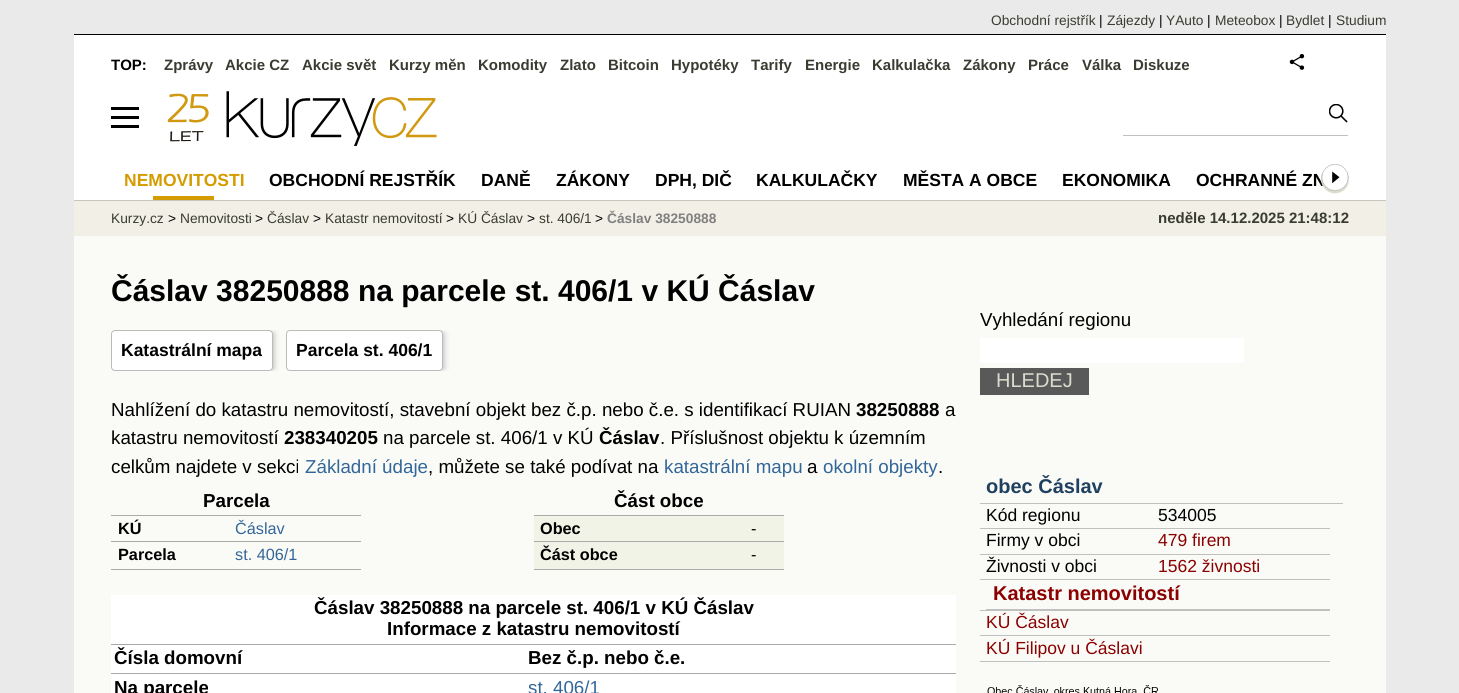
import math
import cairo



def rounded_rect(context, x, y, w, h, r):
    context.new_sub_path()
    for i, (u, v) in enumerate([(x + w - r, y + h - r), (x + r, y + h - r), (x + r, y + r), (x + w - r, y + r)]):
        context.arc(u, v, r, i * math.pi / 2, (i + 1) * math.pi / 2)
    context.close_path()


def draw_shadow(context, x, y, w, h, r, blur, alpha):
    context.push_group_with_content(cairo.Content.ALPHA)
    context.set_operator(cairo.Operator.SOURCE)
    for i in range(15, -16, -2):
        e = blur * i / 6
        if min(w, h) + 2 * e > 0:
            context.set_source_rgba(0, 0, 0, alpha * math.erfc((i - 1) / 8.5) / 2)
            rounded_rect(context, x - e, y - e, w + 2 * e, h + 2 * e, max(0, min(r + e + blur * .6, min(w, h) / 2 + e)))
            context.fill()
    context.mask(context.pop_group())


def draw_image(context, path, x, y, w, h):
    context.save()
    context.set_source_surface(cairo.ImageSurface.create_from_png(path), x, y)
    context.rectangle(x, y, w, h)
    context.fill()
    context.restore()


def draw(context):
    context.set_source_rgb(234 / 255, 234 / 255, 234 / 255)
    context.paint()
    context.set_source_rgb(250 / 255, 251 / 255, 247 / 255)
    context.rectangle(74, 236, 1312, 457)
    context.fill()
    context.set_source_rgb(0, 0, 0)
    context.rectangle(74, 34, 1312, 1)
    context.fill()
    context.set_source_rgb(1, 1, 1)
    context.rectangle(74, 35, 1312, 165)
    context.fill()
    context.set_source_rgb(0, 0, 0)
    context.rectangle(111, 107, 28, 3)
    context.fill()
    draw_image(context, "images/1.png", 167, 91, 270, 55)
    context.set_source_rgb(192 / 255, 192 / 255, 192 / 255)
    context.rectangle(1123, 135, 225, 1)
    context.fill()
    draw_image(context, "images/2.png", 1329, 104, 19, 19)
    context.set_source_rgb(0, 0, 0)
    context.rectangle(111, 116, 28, 3)
    context.fill()
    context.rectangle(111, 125, 28, 3)
    context.fill()
    draw_image(context, "images/3.png", 1289, 54, 16, 16)
    context.set_source_rgb(242 / 255, 239 / 255, 230 / 255)
    context.rectangle(74, 201, 1312, 35)
    context.fill()
    context.save()
    context.rectangle(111, 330, 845, 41)
    context.clip()
    context.set_source_rgb(187 / 255, 187 / 255, 187 / 255)
    draw_shadow(context, 118, 333, 156, 36, 1, 3, 1)
    context.restore()
    context.set_source_rgb(1, 1, 1)
    rounded_rect(context, 111.5, 330.5, 161, 40, 3.5)
    context.fill_preserve()
    context.set_source_rgb(187 / 255, 187 / 255, 187 / 255)
    context.set_line_width(1)
    context.stroke()
    context.save()
    context.rectangle(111, 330, 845, 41)
    context.clip()
    context.set_source_rgb(187 / 255, 187 / 255, 187 / 255)
    draw_shadow(context, 293, 333, 151, 36, 1, 3, 1)
    context.restore()
    context.set_source_rgb(1, 1, 1)
    rounded_rect(context, 286.5, 330.5, 156, 40, 3.5)
    context.fill_preserve()
    context.set_source_rgb(187 / 255, 187 / 255, 187 / 255)
    context.stroke()
    context.set_source_rgb(170 / 255, 170 / 255, 170 / 255)
    context.rectangle(111, 515, 250, 1)
    context.fill()
    context.rectangle(111, 541, 250, 1)
    context.fill()
    context.rectangle(111, 569, 250, 1)
    context.fill()
    context.rectangle(534, 515, 250, 1)
    context.fill()
    context.set_source_rgb(241 / 255, 243 / 255, 230 / 255)
    context.rectangle(534, 516, 250, 53)
    context.fill()
    context.set_source_rgb(170 / 255, 170 / 255, 170 / 255)
    context.rectangle(534, 541, 250, 1)
    context.fill()
    context.rectangle(534, 569, 250, 1)
    context.fill()
    context.set_source_rgb(1, 1, 1)
    context.rectangle(111, 595, 845, 98)
    context.fill()
    context.set_source_rgb(170 / 255, 170 / 255, 170 / 255)
    context.rectangle(111, 644, 845, 1)
    context.fill()
    context.rectangle(111, 673, 845, 1)
    context.fill()
    context.set_source_rgb(1, 1, 1)
    context.rectangle(980, 338, 264, 25)
    context.fill()
    context.set_source_rgb(89 / 255, 89 / 255, 89 / 255)
    context.rectangle(980, 368, 109, 27)
    context.fill()
    context.set_source_rgb(192 / 255, 192 / 255, 192 / 255)
    context.rectangle(980, 503, 363, 1)
    context.fill()
    context.rectangle(980, 528, 350, 1)
    context.fill()
    context.rectangle(980, 554, 350, 1)
    context.fill()
    context.rectangle(980, 579, 350, 1)
    context.fill()
    context.rectangle(980, 610, 350, 1)
    context.fill()
    context.rectangle(986, 609, 344, 1)
    context.fill()
    context.rectangle(980, 635, 350, 1)
    context.fill()
    context.rectangle(980, 661, 350, 1)
    context.fill()
    draw_image(context, "images/4.png", 987, 685, 171, 8)
    context.set_source_rgb(197 / 255, 198 / 255, 189 / 255)
    context.rectangle(74, 200, 1312, 1)
    context.fill()
    context.set_source_rgb(212 / 255, 156 / 255, 1 / 255)
    context.rectangle(153, 196, 61, 4)
    context.fill()
    context.select_font_face("Liberation Sans")
    context.set_font_size(13.75)
    context.set_source_rgb(57 / 255, 60 / 255, 49 / 255)
    context.move_to(991, 25)
    context.show_text("Obchodní rejstřík")
    context.set_source_rgb(0, 0, 0)
    context.move_to(1099, 25)
    context.show_text("|")
    context.set_source_rgb(57 / 255, 60 / 255, 49 / 255)
    context.move_to(1107, 25)
    context.show_text("Zájezdy")
    context.set_source_rgb(0, 0, 0)
    context.move_to(1159, 25)
    context.show_text("|")
    context.set_source_rgb(57 / 255, 60 / 255, 49 / 255)
    context.move_to(1166, 25)
    context.show_text("YAuto")
    context.set_source_rgb(0, 0, 0)
    context.move_to(1207, 25)
    context.show_text("|")
    context.set_source_rgb(57 / 255, 60 / 255, 49 / 255)
    context.move_to(1215, 25)
    context.show_text("Meteobox")
    context.set_source_rgb(0, 0, 0)
    context.move_to(1279, 25)
    context.show_text("|")
    context.set_source_rgb(57 / 255, 60 / 255, 49 / 255)
    context.move_to(1286, 25)
    context.show_text("Bydlet")
    context.set_source_rgb(0, 0, 0)
    context.move_to(1328, 25)
    context.show_text("|")
    context.set_source_rgb(57 / 255, 60 / 255, 49 / 255)
    context.move_to(1336, 25)
    context.show_text("Studium")
    context.select_font_face("Liberation Sans", cairo.FontSlant.NORMAL, cairo.FontWeight.BOLD)
    context.set_font_size(15)
    context.set_source_rgb(0, 0, 0)
    context.move_to(111, 70)
    context.show_text("TOP:")
    context.set_source_rgb(57 / 255, 60 / 255, 49 / 255)
    context.move_to(164, 70)
    context.show_text("Zprávy")
    context.move_to(225, 70)
    context.show_text("Akcie CZ")
    context.move_to(302, 70)
    context.show_text("Akcie svět")
    context.move_to(389, 70)
    context.show_text("Kurzy měn")
    context.move_to(478, 70)
    context.show_text("Komodity")
    context.move_to(560, 70)
    context.show_text("Zlato")
    context.move_to(608, 70)
    context.show_text("Bitcoin")
    context.move_to(671, 70)
    context.show_text("Hypotéky")
    context.move_to(751, 70)
    context.show_text("Tarify")
    context.move_to(805, 70)
    context.show_text("Energie")
    context.move_to(872, 70)
    context.show_text("Kalkulačka")
    context.move_to(963, 70)
    context.show_text("Zákony")
    context.move_to(1028, 70)
    context.show_text("Práce")
    context.move_to(1082, 70)
    context.show_text("Válka")
    context.move_to(1133, 70)
    context.show_text("Diskuze")
    context.select_font_face("Liberation Sans")
    context.set_font_size(13.75)
    context.move_to(111, 223)
    context.show_text("Kurzy.cz")
    context.set_source_rgb(0, 0, 0)
    context.move_to(168, 223)
    context.show_text(">")
    context.set_source_rgb(57 / 255, 60 / 255, 49 / 255)
    context.move_to(180, 223)
    context.show_text("Nemovitosti")
    context.set_source_rgb(0, 0, 0)
    context.move_to(255, 223)
    context.show_text(">")
    context.set_source_rgb(57 / 255, 60 / 255, 49 / 255)
    context.move_to(267, 223)
    context.show_text("Čáslav")
    context.set_source_rgb(0, 0, 0)
    context.move_to(313, 223)
    context.show_text(">")
    context.set_source_rgb(57 / 255, 60 / 255, 49 / 255)
    context.move_to(325, 223)
    context.show_text("Katastr nemovitostí")
    context.set_source_rgb(0, 0, 0)
    context.move_to(446, 223)
    context.show_text(">")
    context.set_source_rgb(57 / 255, 60 / 255, 49 / 255)
    context.move_to(458, 223)
    context.show_text("KÚ Čáslav")
    context.set_source_rgb(0, 0, 0)
    context.move_to(527, 223)
    context.show_text(">")
    context.set_source_rgb(57 / 255, 60 / 255, 49 / 255)
    context.move_to(539, 223)
    context.show_text("st. 406/1")
    context.set_source_rgb(0, 0, 0)
    context.move_to(595, 223)
    context.show_text(">")
    context.select_font_face("Liberation Sans", cairo.FontSlant.NORMAL, cairo.FontWeight.BOLD)
    context.set_source_rgb(128 / 255, 128 / 255, 128 / 255)
    context.move_to(607, 223)
    context.show_text("Čáslav 38250888")
    context.set_font_size(15)
    context.set_source_rgb(57 / 255, 60 / 255, 49 / 255)
    context.move_to(1158, 223)
    context.show_text("neděle 14.12.2025 21:48:12")
    context.set_font_size(30)
    context.set_source_rgb(0, 0, 0)
    context.move_to(111, 301)
    context.show_text("Čáslav 38250888 na parcele st. 406/1 v KÚ Čáslav")
    context.set_font_size(17.5)
    context.move_to(121, 356)
    context.show_text("Katastrální mapa")
    context.move_to(296, 356)
    context.show_text("Parcela st. 406/1")
    context.select_font_face("Liberation Sans")
    context.set_font_size(18.75)
    context.move_to(111, 416)
    context.show_text("Nahlížení do katastru nemovitostí, stavební objekt bez č.p. nebo č.e. s identifikací RUIAN")
    context.select_font_face("Liberation Sans", cairo.FontSlant.NORMAL, cairo.FontWeight.BOLD)
    context.move_to(856, 416)
    context.show_text("38250888")
    context.select_font_face("Liberation Sans")
    context.move_to(945, 416)
    context.show_text("a")
    context.move_to(111, 444)
    context.show_text("katastru nemovitostí")
    context.select_font_face("Liberation Sans", cairo.FontSlant.NORMAL, cairo.FontWeight.BOLD)
    context.move_to(284, 444)
    context.show_text("238340205")
    context.select_font_face("Liberation Sans")
    context.move_to(383, 444)
    context.show_text("na parcele st. 406/1 v KÚ")
    context.select_font_face("Liberation Sans", cairo.FontSlant.NORMAL, cairo.FontWeight.BOLD)
    context.move_to(599, 444)
    context.show_text("Čáslav")
    context.select_font_face("Liberation Sans")
    context.move_to(660, 444)
    context.show_text(". Příslušnost objektu k územním")
    context.move_to(111, 473)
    context.show_text("celkům najdete v sekci")
    context.set_source_rgb(51 / 255, 102 / 255, 153 / 255)
    context.move_to(305, 473)
    context.show_text("Základní údaje")
    context.set_source_rgb(0, 0, 0)
    context.move_to(428, 473)
    context.show_text(", můžete se také podívat na")
    context.set_source_rgb(51 / 255, 102 / 255, 153 / 255)
    context.move_to(664, 473)
    context.show_text("katastrální mapu")
    context.set_source_rgb(0, 0, 0)
    context.move_to(807, 473)
    context.show_text("a")
    context.set_source_rgb(51 / 255, 102 / 255, 153 / 255)
    context.move_to(823, 473)
    context.show_text("okolní objekty")
    context.set_source_rgb(0, 0, 0)
    context.move_to(938, 473)
    context.show_text(".")
    context.select_font_face("Liberation Sans", cairo.FontSlant.NORMAL, cairo.FontWeight.BOLD)
    context.move_to(203, 507)
    context.show_text("Parcela")
    context.set_font_size(16.25)
    context.move_to(118, 534)
    context.show_text("KÚ")
    context.select_font_face("Liberation Sans")
    context.set_source_rgb(51 / 255, 102 / 255, 153 / 255)
    context.move_to(235, 534)
    context.show_text("Čáslav")
    context.select_font_face("Liberation Sans", cairo.FontSlant.NORMAL, cairo.FontWeight.BOLD)
    context.set_source_rgb(0, 0, 0)
    context.move_to(118, 560)
    context.show_text("Parcela")
    context.select_font_face("Liberation Sans")
    context.set_source_rgb(51 / 255, 102 / 255, 153 / 255)
    context.move_to(235, 560)
    context.show_text("st. 406/1")
    context.select_font_face("Liberation Sans", cairo.FontSlant.NORMAL, cairo.FontWeight.BOLD)
    context.set_font_size(18.75)
    context.set_source_rgb(0, 0, 0)
    context.move_to(614, 507)
    context.show_text("Část obce")
    context.set_font_size(16.25)
    context.move_to(540, 534)
    context.show_text("Obec")
    context.select_font_face("Liberation Sans")
    context.move_to(751, 534)
    context.show_text("-")
    context.select_font_face("Liberation Sans", cairo.FontSlant.NORMAL, cairo.FontWeight.BOLD)
    context.move_to(540, 560)
    context.show_text("Část obce")
    context.select_font_face("Liberation Sans")
    context.move_to(751, 560)
    context.show_text("-")
    context.select_font_face("Liberation Sans", cairo.FontSlant.NORMAL, cairo.FontWeight.BOLD)
    context.set_font_size(18.75)
    context.move_to(314, 614)
    context.show_text("Čáslav 38250888 na parcele st. 406/1 v KÚ Čáslav")
    context.move_to(387, 635)
    context.show_text("Informace z katastru nemovitostí")
    context.move_to(114, 664)
    context.show_text("Čísla domovní")
    context.move_to(528, 664)
    context.show_text("Bez č.p. nebo č.e.")
    context.move_to(114, 694)
    context.show_text("Na parcele")
    context.select_font_face("Liberation Sans")
    context.set_source_rgb(51 / 255, 102 / 255, 153 / 255)
    context.move_to(528, 694)
    context.show_text("st. 406/1")
    context.set_source_rgb(0, 0, 0)
    context.move_to(980, 326)
    context.show_text("Vyhledání regionu")
    context.set_font_size(20)
    context.set_source_rgb(217 / 255, 220 / 255, 204 / 255)
    context.move_to(996, 387)
    context.show_text("HLEDEJ")
    context.select_font_face("Liberation Sans", cairo.FontSlant.NORMAL, cairo.FontWeight.BOLD)
    context.set_source_rgb(32 / 255, 64 / 255, 96 / 255)
    context.move_to(986, 493)
    context.show_text("obec Čáslav")
    context.select_font_face("Liberation Sans")
    context.set_font_size(17.5)
    context.set_source_rgb(0, 0, 0)
    context.move_to(986, 521)
    context.show_text("Kód regionu")
    context.move_to(1158, 521)
    context.show_text("534005")
    context.move_to(986, 546)
    context.show_text("Firmy v obci")
    context.set_source_rgb(139 / 255, 0, 0)
    context.move_to(1158, 546)
    context.show_text("479 firem")
    context.set_source_rgb(0, 0, 0)
    context.move_to(986, 572)
    context.show_text("Živnosti v obci")
    context.set_source_rgb(139 / 255, 0, 0)
    context.move_to(1158, 572)
    context.show_text("1562 živnosti")
    context.select_font_face("Liberation Sans", cairo.FontSlant.NORMAL, cairo.FontWeight.BOLD)
    context.set_font_size(20)
    context.move_to(993, 600)
    context.show_text("Katastr nemovitostí")
    context.select_font_face("Liberation Sans")
    context.set_font_size(17.5)
    context.move_to(986, 628)
    context.show_text("KÚ Čáslav")
    context.move_to(986, 654)
    context.show_text("KÚ Filipov u Čáslavi")
    context.select_font_face("Liberation Sans", cairo.FontSlant.NORMAL, cairo.FontWeight.BOLD)
    context.set_source_rgb(212 / 255, 156 / 255, 1 / 255)
    context.move_to(124, 186)
    context.show_text("NEMOVITOSTI")
    context.set_source_rgb(0, 0, 0)
    context.move_to(269, 186)
    context.show_text("OBCHODNÍ REJSTŘÍK")
    context.move_to(481, 186)
    context.show_text("DANĚ")
    context.move_to(556, 186)
    context.show_text("ZÁKONY")
    context.move_to(655, 186)
    context.show_text("DPH, DIČ")
    context.move_to(756, 186)
    context.show_text("KALKULAČKY")
    context.move_to(903, 186)
    context.show_text("MĚSTA A OBCE")
    context.move_to(1062, 186)
    context.show_text("EKONOMIKA")
    context.move_to(1196, 186)
    context.show_text("OCHRANNÉ ZN")
    draw_image(context, "images/5.png", 1321, 164, 28, 30)


surface = cairo.ImageSurface(cairo.Format.RGB24, 1459, 693)
context = cairo.Context(surface)
options = cairo.FontOptions()
options.set_hint_metrics(cairo.HintMetrics.OFF)
options.set_hint_style(cairo.HintStyle.NONE)
context.set_font_options(options)
context.set_miter_limit(4)
draw(context)
surface.write_to_png("out.png")
